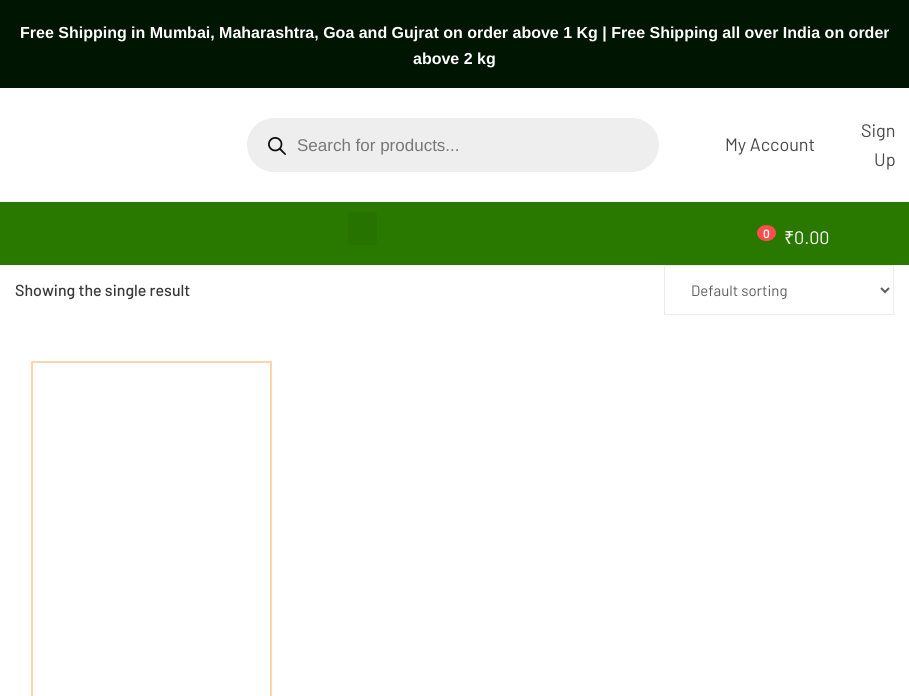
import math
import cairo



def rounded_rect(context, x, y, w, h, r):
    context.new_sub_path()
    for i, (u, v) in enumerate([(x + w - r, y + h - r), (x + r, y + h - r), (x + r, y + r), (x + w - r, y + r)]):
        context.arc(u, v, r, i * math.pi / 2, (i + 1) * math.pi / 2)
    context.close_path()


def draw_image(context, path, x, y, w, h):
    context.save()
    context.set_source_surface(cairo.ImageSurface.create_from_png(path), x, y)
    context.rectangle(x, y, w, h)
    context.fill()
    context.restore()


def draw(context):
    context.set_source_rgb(1, 1, 1)
    context.paint()
    context.set_source_rgb(0, 22 / 255, 2 / 255)
    context.rectangle(0, 0, 909, 88)
    context.fill()
    context.set_source_rgb(238 / 255, 238 / 255, 238 / 255)
    rounded_rect(context, 247, 118, 412, 54, 27)
    context.fill()
    draw_image(context, "images/1.png", 268, 137, 18, 18)
    context.set_source_rgb(41 / 255, 121 / 255, 0)
    context.rectangle(0, 202, 909, 63)
    context.fill()
    context.set_source_rgb(39 / 255, 115 / 255, 0)
    rounded_rect(context, 348, 212, 29, 33, 3)
    context.fill()
    context.set_source_rgb(1, 77 / 255, 77 / 255)
    context.new_path()
    context.move_to(766.5, 225)
    context.curve_to(771.5, 225, 776, 228.5, 776, 233)
    context.curve_to(776, 237.5, 771.5, 241, 766.5, 241)
    context.curve_to(761.5, 241, 757, 237.5, 757, 233)
    context.curve_to(757, 228.5, 761.5, 225, 766.5, 225)
    context.close_path()
    context.fill()
    context.rectangle(664.5, 265.5, 229, 49)
    context.set_source_rgb(236 / 255, 236 / 255, 236 / 255)
    context.set_line_width(1)
    context.stroke()
    context.new_path()
    context.move_to(881, 288)
    context.line_to(885, 292)
    context.line_to(889, 288)
    context.set_source_rgb(93 / 255, 93 / 255, 96 / 255)
    context.set_line_width(2)
    context.stroke()
    context.rectangle(32, 362, 239, 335)
    context.set_source_rgb(1, 212 / 255, 173 / 255)
    context.stroke()
    context.select_font_face("Liberation Sans", cairo.FontSlant.NORMAL, cairo.FontWeight.BOLD)
    context.set_font_size(16)
    context.set_source_rgb(1, 1, 1)
    context.move_to(20, 38)
    context.show_text("Free Shipping in Mumbai, Maharashtra, Goa and Gujrat on order above 1 Kg | Free Shipping all over India on order")
    context.move_to(413, 64)
    context.show_text("above 2 kg")
    context.select_font_face("Liberation Sans")
    context.set_font_size(17)
    context.set_source_rgb(119 / 255, 119 / 255, 119 / 255)
    context.move_to(297, 151)
    context.show_text("Search for products...")
    context.select_font_face("Barlow")
    context.set_font_size(18)
    context.set_source_rgb(73 / 255, 72 / 255, 72 / 255)
    context.move_to(725, 151)
    context.show_text("My Account")
    context.move_to(861, 137)
    context.show_text("Sign")
    context.move_to(874, 166)
    context.show_text("Up")
    context.select_font_face("Barlow SemiBold")
    context.set_font_size(12)
    context.set_source_rgb(1, 1, 1)
    context.move_to(763, 238)
    context.show_text("0")
    context.select_font_face("Noto Sans")
    context.set_font_size(18)
    context.move_to(784, 244)
    context.show_text("₹")
    context.select_font_face("Barlow")
    context.move_to(794, 244)
    context.show_text("0.00")
    context.select_font_face("Barlow Medium")
    context.set_font_size(16)
    context.set_source_rgb(56 / 255, 56 / 255, 56 / 255)
    context.move_to(15, 296)
    context.show_text("Showing the single result")
    context.select_font_face("Barlow")
    context.set_font_size(15)
    context.set_source_rgb(93 / 255, 93 / 255, 96 / 255)
    context.move_to(691, 296)
    context.show_text("Default sorting")


surface = cairo.ImageSurface(cairo.Format.RGB24, 909, 696)
context = cairo.Context(surface)
options = cairo.FontOptions()
options.set_hint_metrics(cairo.HintMetrics.OFF)
options.set_hint_style(cairo.HintStyle.NONE)
context.set_font_options(options)
context.set_miter_limit(4)
draw(context)
surface.write_to_png("out.png")
